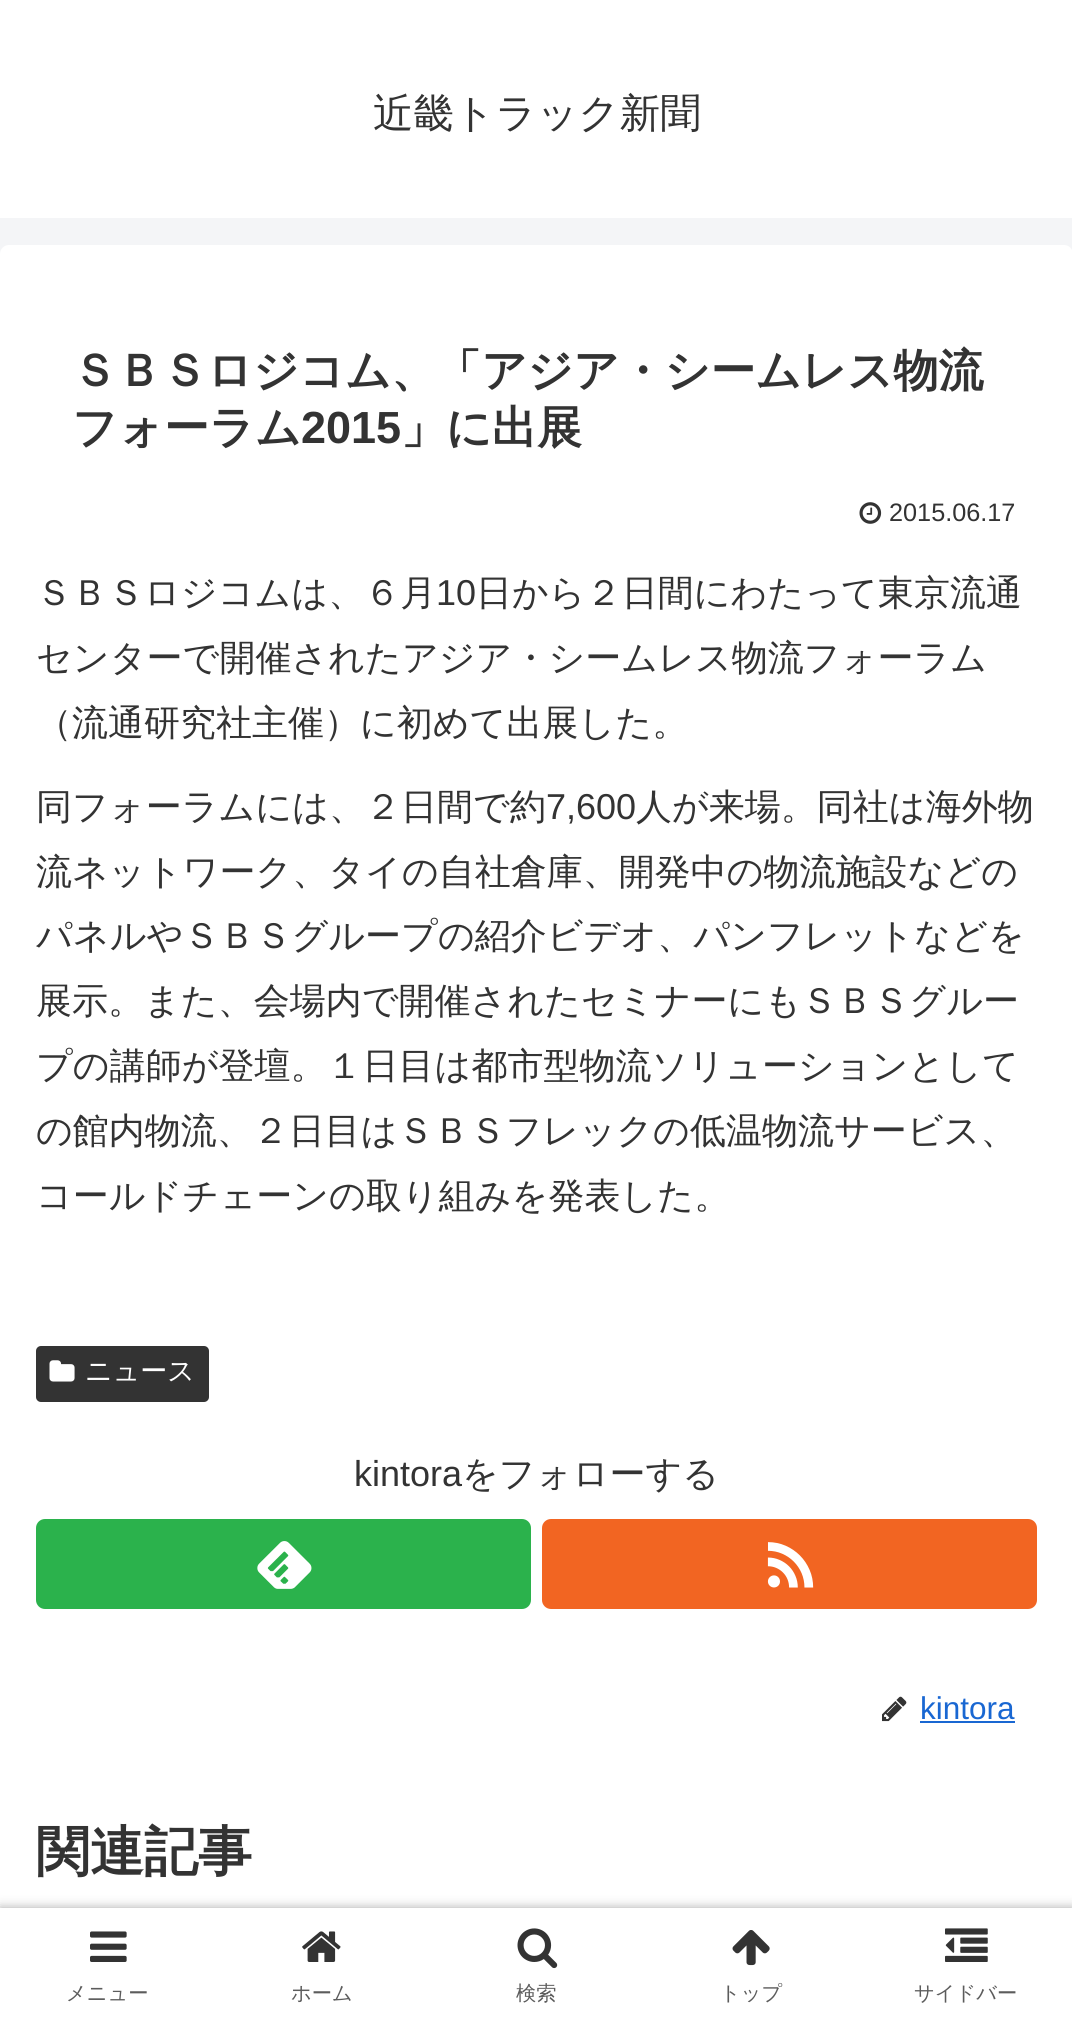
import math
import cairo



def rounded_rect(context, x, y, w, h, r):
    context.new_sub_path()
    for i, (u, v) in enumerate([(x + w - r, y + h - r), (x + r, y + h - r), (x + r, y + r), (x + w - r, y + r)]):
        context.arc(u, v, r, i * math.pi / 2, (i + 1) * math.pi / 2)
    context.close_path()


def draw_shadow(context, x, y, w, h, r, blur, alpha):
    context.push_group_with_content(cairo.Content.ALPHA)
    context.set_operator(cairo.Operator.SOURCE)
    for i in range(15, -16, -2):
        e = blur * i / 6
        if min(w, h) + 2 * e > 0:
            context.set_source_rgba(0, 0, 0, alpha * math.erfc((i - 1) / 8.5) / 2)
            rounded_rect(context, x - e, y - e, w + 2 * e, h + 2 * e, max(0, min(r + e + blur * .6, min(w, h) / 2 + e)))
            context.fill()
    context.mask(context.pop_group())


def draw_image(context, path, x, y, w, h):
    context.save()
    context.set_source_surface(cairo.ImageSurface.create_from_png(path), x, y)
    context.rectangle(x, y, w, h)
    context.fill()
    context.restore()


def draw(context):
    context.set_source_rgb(244 / 255, 245 / 255, 247 / 255)
    context.paint()
    context.set_source_rgb(1, 1, 1)
    context.rectangle(0, 0, 1072, 218)
    context.fill()
    rounded_rect(context, 0, 245, 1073, 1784, 9)
    context.fill()
    draw_image(context, "images/1.png", 859, 502, 23, 22)
    context.set_source_rgb(51 / 255, 51 / 255, 51 / 255)
    rounded_rect(context, 36, 1346, 173, 56, 5)
    context.fill()
    draw_image(context, "images/2.png", 49, 1360, 26, 22)
    context.set_source_rgb(43 / 255, 178 / 255, 76 / 255)
    rounded_rect(context, 36, 1519, 495, 90, 9)
    context.fill()
    draw_image(context, "images/3.png", 257, 1541, 55, 48)
    context.set_source_rgb(242 / 255, 101 / 255, 34 / 255)
    rounded_rect(context, 542, 1519, 495, 90, 9)
    context.fill()
    draw_image(context, "images/4.png", 767, 1542, 47, 46)
    draw_image(context, "images/5.png", 882, 1696, 25, 26)
    context.set_source_rgb(25 / 255, 103 / 255, 210 / 255)
    context.rectangle(920, 1721, 95, 2)
    context.fill()
    context.set_source_rgb(169 / 255, 169 / 255, 169 / 255)
    draw_shadow(context, 0, 1908, 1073, 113, 0, 5.5, 1)
    context.set_source_rgb(1, 1, 1)
    context.rectangle(0, 1908, 1072, 112)
    context.fill()
    draw_image(context, "images/6.png", 90, 1931, 37, 31)
    draw_image(context, "images/7.png", 302, 1931, 39, 31)
    draw_image(context, "images/8.png", 517, 1928, 41, 41)
    draw_image(context, "images/9.png", 732, 1930, 38, 36)
    draw_image(context, "images/10.png", 945, 1928, 43, 34)
    context.select_font_face("WenQuanYi Zen Hei Medium")
    context.set_font_size(40.5)
    context.set_source_rgb(51 / 255, 51 / 255, 51 / 255)
    context.move_to(373, 127)
    context.show_text("近畿トラック新聞")
    context.select_font_face("WenQuanYi Zen Hei", cairo.FontSlant.NORMAL, cairo.FontWeight.BOLD)
    context.set_font_size(45)
    context.move_to(72, 386)
    context.show_text("ＳＢＳロジコム、「アジア・シームレス物流")
    context.move_to(72, 443)
    context.show_text("フォーラム")
    context.select_font_face("Liberation Sans", cairo.FontSlant.NORMAL, cairo.FontWeight.BOLD)
    context.move_to(301, 443)
    context.show_text("2015")
    context.select_font_face("WenQuanYi Zen Hei", cairo.FontSlant.NORMAL, cairo.FontWeight.BOLD)
    context.move_to(401, 443)
    context.show_text("」に出展")
    context.select_font_face("Liberation Sans")
    context.set_font_size(25.25)
    context.move_to(889, 521)
    context.show_text("2015.06.17")
    context.select_font_face("WenQuanYi Zen Hei Medium")
    context.set_font_size(36)
    context.move_to(36, 605)
    context.show_text("ＳＢＳロジコムは、６月")
    context.select_font_face("Liberation Sans")
    context.move_to(436, 605)
    context.show_text("10")
    context.select_font_face("WenQuanYi Zen Hei Medium")
    context.move_to(476, 605)
    context.show_text("日から２日間にわたって東京流通")
    context.move_to(36, 670)
    context.show_text("センターで開催されたアジア・シームレス物流フォーラム")
    context.move_to(36, 735)
    context.show_text("（流通研究社主催）に初めて出展した。")
    context.move_to(36, 819)
    context.show_text("同フォーラムには、２日間で約")
    context.select_font_face("Liberation Sans")
    context.move_to(546, 819)
    context.show_text("7,600")
    context.select_font_face("WenQuanYi Zen Hei Medium")
    context.move_to(636, 819)
    context.show_text("人が来場。同社は海外物")
    context.move_to(36, 884)
    context.show_text("流ネットワーク、タイの自社倉庫、開発中の物流施設などの")
    context.move_to(36, 948)
    context.show_text("パネルやＳＢＳグループの紹介ビデオ、パンフレットなどを")
    context.move_to(36, 1013)
    context.show_text("展示。また、会場内で開催されたセミナーにもＳＢＳグルー")
    context.move_to(36, 1078)
    context.show_text("プの講師が登壇。１日目は都市型物流ソリューションとして")
    context.move_to(36, 1143)
    context.show_text("の館内物流、２日目はＳＢＳフレックの低温物流サービス、")
    context.move_to(36, 1208)
    context.show_text("コールドチェーンの取り組みを発表した。")
    context.set_font_size(27)
    context.set_source_rgb(1, 1, 1)
    context.move_to(85, 1380)
    context.show_text("ニュース")
    context.select_font_face("Liberation Sans")
    context.set_font_size(36)
    context.set_source_rgb(51 / 255, 51 / 255, 51 / 255)
    context.move_to(354, 1486)
    context.show_text("kintora")
    context.select_font_face("WenQuanYi Zen Hei Medium")
    context.move_to(462, 1486)
    context.show_text("をフォローする")
    context.select_font_face("Liberation Sans")
    context.set_font_size(31.5)
    context.set_source_rgb(25 / 255, 103 / 255, 210 / 255)
    context.move_to(920, 1719)
    context.show_text("kintora")
    context.select_font_face("WenQuanYi Zen Hei", cairo.FontSlant.NORMAL, cairo.FontWeight.BOLD)
    context.set_font_size(54)
    context.set_source_rgb(51 / 255, 51 / 255, 51 / 255)
    context.move_to(36, 1870)
    context.show_text("関連記事")
    context.select_font_face("WenQuanYi Zen Hei Medium")
    context.set_font_size(20.25)
    context.set_source_rgb(92 / 255, 92 / 255, 92 / 255)
    context.move_to(66, 2000)
    context.show_text("メニュー")
    context.move_to(291, 2000)
    context.show_text("ホーム")
    context.move_to(516, 2000)
    context.show_text("検索")
    context.move_to(720, 2000)
    context.show_text("トップ")
    context.move_to(914, 2000)
    context.show_text("サイドバー")


surface = cairo.ImageSurface(cairo.Format.RGB24, 1072, 2020)
context = cairo.Context(surface)
options = cairo.FontOptions()
options.set_hint_metrics(cairo.HintMetrics.OFF)
options.set_hint_style(cairo.HintStyle.NONE)
context.set_font_options(options)
context.set_miter_limit(4)
draw(context)
surface.write_to_png("out.png")
